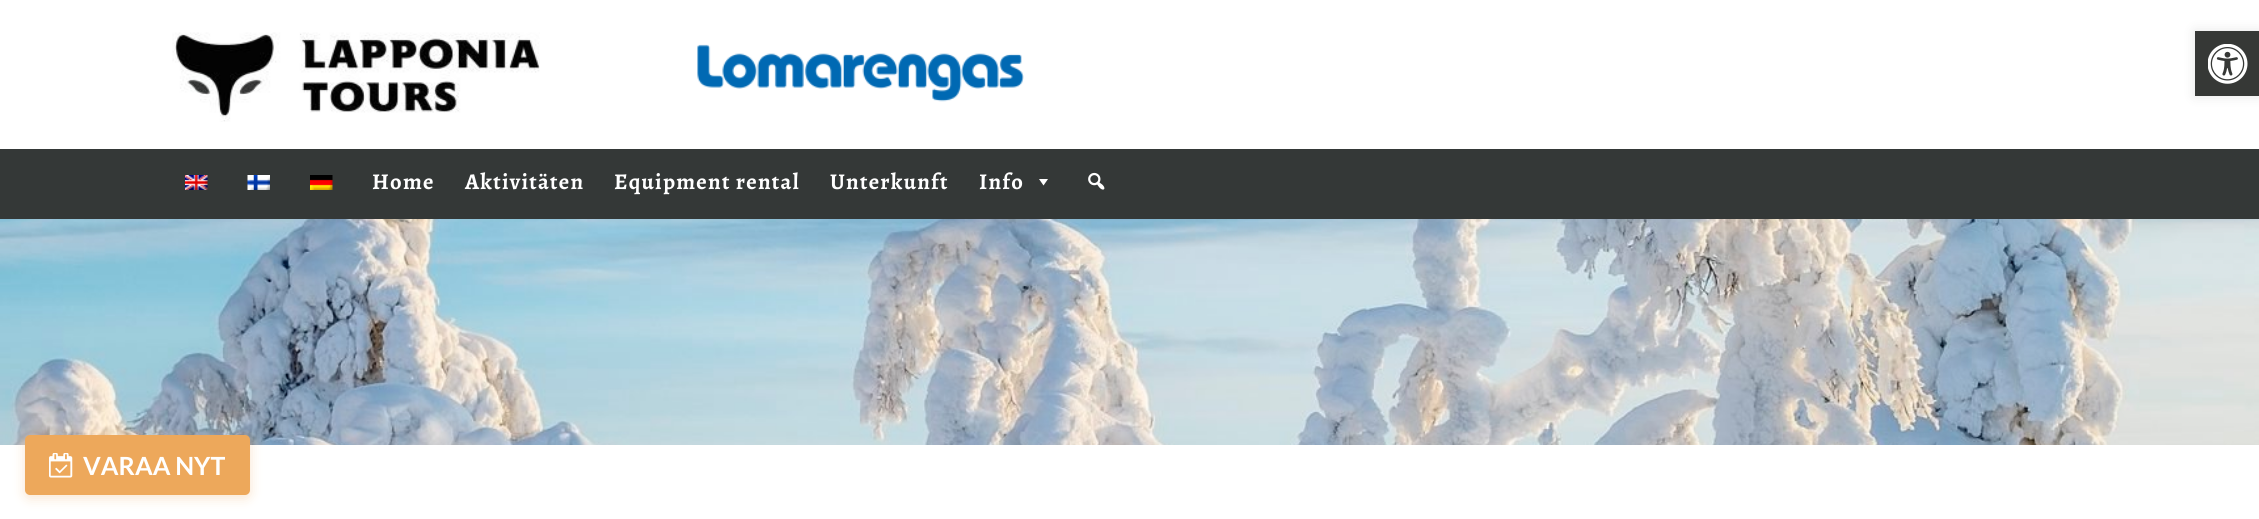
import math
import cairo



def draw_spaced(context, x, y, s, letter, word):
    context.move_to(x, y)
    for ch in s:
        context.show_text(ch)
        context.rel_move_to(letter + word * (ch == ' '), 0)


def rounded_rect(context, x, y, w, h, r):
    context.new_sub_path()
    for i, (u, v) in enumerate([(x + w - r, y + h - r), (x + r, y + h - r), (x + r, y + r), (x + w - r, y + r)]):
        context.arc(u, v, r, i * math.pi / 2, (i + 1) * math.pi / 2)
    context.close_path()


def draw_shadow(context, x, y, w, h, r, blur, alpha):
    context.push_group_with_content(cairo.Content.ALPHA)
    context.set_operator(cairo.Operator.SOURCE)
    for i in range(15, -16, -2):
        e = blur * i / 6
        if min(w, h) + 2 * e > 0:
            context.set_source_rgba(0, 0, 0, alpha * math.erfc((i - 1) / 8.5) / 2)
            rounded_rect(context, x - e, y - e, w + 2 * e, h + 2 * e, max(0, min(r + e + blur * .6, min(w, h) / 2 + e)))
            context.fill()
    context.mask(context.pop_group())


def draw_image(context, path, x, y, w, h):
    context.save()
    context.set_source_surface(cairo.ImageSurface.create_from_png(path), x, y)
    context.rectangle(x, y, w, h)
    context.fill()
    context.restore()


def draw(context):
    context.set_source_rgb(1, 1, 1)
    context.paint()
    context.set_source_rgb(0, 0, 0)
    draw_shadow(context, 2195, 31, 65, 65, 0, 6, 0.1)
    context.set_source_rgb(54 / 255, 56 / 255, 54 / 255)
    context.rectangle(2195, 31, 64, 65)
    context.fill()
    draw_image(context, "images/1.png", 2208, 44, 40, 40)
    draw_image(context, "images/2.png", 172, 32, 368, 90)
    draw_image(context, "images/3.png", 697, 44, 327, 58)
    context.set_source_rgb(52 / 255, 56 / 255, 55 / 255)
    context.rectangle(0, 149, 2259, 70)
    context.fill()
    draw_image(context, "images/4.png", 185, 175, 23, 15)
    draw_image(context, "images/5.png", 247, 175, 23, 15)
    draw_image(context, "images/6.png", 310, 175, 23, 15)
    context.set_source_rgb(1, 1, 1)
    context.new_path()
    context.move_to(1048, 179)
    context.line_to(1043.5, 185.5)
    context.line_to(1039, 179)
    context.close_path()
    context.fill()
    draw_image(context, "images/7.png", 1088, 172, 17, 18)
    draw_image(context, "images/8.png", 0, 219, 2259, 226)
    context.set_source_rgb(237 / 255, 168 / 255, 91 / 255)
    draw_shadow(context, 25, 438, 225, 60, 5, 6, 0.3)
    context.set_source_rgb(237 / 255, 168 / 255, 91 / 255)
    rounded_rect(context, 25, 435, 225, 60, 5)
    context.fill()
    draw_image(context, "images/9.png", 49, 453, 24, 25)
    context.select_font_face("Alegreya", cairo.FontSlant.NORMAL, cairo.FontWeight.BOLD)
    context.set_font_size(22.5)
    context.set_source_rgb(1, 1, 1)
    draw_spaced(context, 372, 189, "Home", 1.25, 0)
    draw_spaced(context, 465, 189, "Aktivitäten", 1.25, 0)
    draw_spaced(context, 614, 189, "Equipment rental", 1.25, 0)
    draw_spaced(context, 830, 189, "Unterkunft", 1.25, 0)
    draw_spaced(context, 979, 189, "Info", 1.25, 0)
    context.select_font_face("Lato", cairo.FontSlant.NORMAL, cairo.FontWeight.BOLD)
    context.set_font_size(25)
    context.move_to(83, 475)
    context.show_text("VARAA NYT")


surface = cairo.ImageSurface(cairo.Format.RGB24, 2259, 519)
context = cairo.Context(surface)
options = cairo.FontOptions()
options.set_hint_metrics(cairo.HintMetrics.OFF)
options.set_hint_style(cairo.HintStyle.NONE)
context.set_font_options(options)
context.set_miter_limit(4)
draw(context)
surface.write_to_png("out.png")
